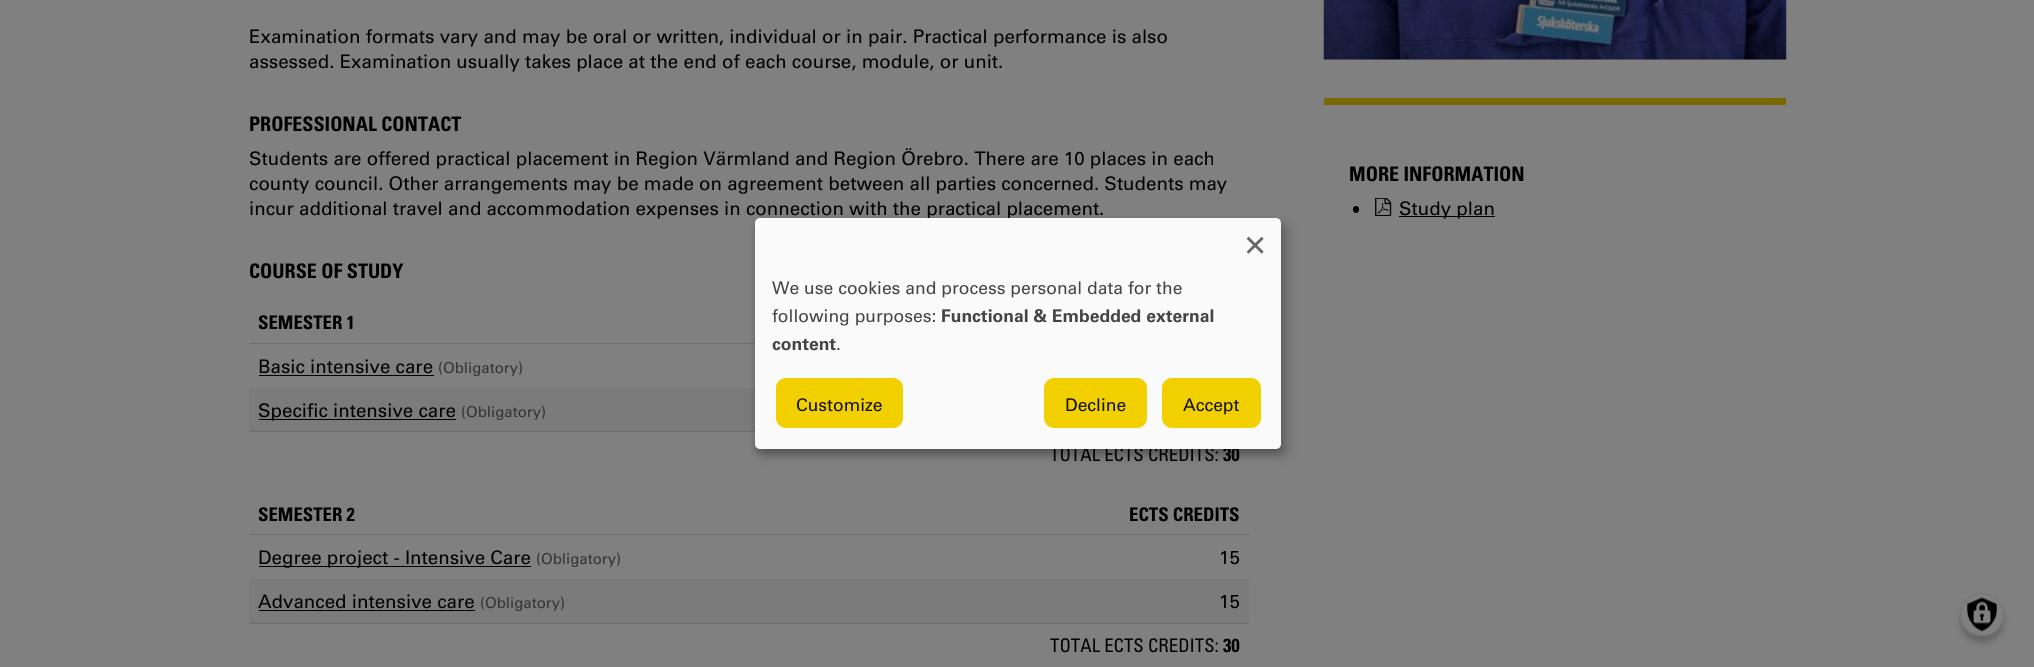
import math
import cairo



def rounded_rect(context, x, y, w, h, r):
    context.new_sub_path()
    for i, (u, v) in enumerate([(x + w - r, y + h - r), (x + r, y + h - r), (x + r, y + r), (x + w - r, y + r)]):
        context.arc(u, v, r, i * math.pi / 2, (i + 1) * math.pi / 2)
    context.close_path()


def draw_shadow(context, x, y, w, h, r, blur, alpha):
    context.push_group_with_content(cairo.Content.ALPHA)
    context.set_operator(cairo.Operator.SOURCE)
    for i in range(15, -16, -2):
        e = blur * i / 6
        if min(w, h) + 2 * e > 0:
            context.set_source_rgba(0, 0, 0, alpha * math.erfc((i - 1) / 8.5) / 2)
            rounded_rect(context, x - e, y - e, w + 2 * e, h + 2 * e, max(0, min(r + e + blur * .6, min(w, h) / 2 + e)))
            context.fill()
    context.mask(context.pop_group())


def draw_image(context, path, x, y, w, h):
    context.save()
    context.set_source_surface(cairo.ImageSurface.create_from_png(path), x, y)
    context.rectangle(x, y, w, h)
    context.fill()
    context.restore()


def draw(context):
    context.set_source_rgb(128 / 255, 128 / 255, 128 / 255)
    context.paint()
    context.set_source_rgb(109 / 255, 109 / 255, 109 / 255)
    context.rectangle(249, 343, 506, 1)
    context.fill()
    context.set_source_rgb(0, 0, 0)
    context.rectangle(259, 375, 175, 1)
    context.fill()
    context.set_source_rgb(123 / 255, 123 / 255, 123 / 255)
    context.rectangle(249, 388, 506, 43)
    context.fill()
    context.set_source_rgb(0, 0, 0)
    context.rectangle(259, 419, 197, 1)
    context.fill()
    context.set_source_rgb(109 / 255, 109 / 255, 109 / 255)
    context.rectangle(249, 431, 506, 1)
    context.fill()
    context.rectangle(249, 534, 1000, 1)
    context.fill()
    context.set_source_rgb(0, 0, 0)
    context.rectangle(259, 566, 272, 1)
    context.fill()
    context.set_source_rgb(123 / 255, 123 / 255, 123 / 255)
    context.rectangle(249, 579, 1000, 44)
    context.fill()
    context.set_source_rgb(0, 0, 0)
    context.rectangle(259, 610, 216, 1)
    context.fill()
    context.set_source_rgb(109 / 255, 109 / 255, 109 / 255)
    context.rectangle(249, 623, 1000, 1)
    context.fill()
    context.set_source_rgb(123 / 255, 123 / 255, 123 / 255)
    context.rectangle(1324, 59, 462, 1)
    context.fill()
    draw_image(context, "images/1.png", 1323, 0, 464, 60)
    context.set_source_rgb(121 / 255, 104 / 255, 0)
    context.rectangle(1324, 98, 462, 7)
    context.fill()
    context.set_source_rgb(0, 0, 0)
    rounded_rect(context, 1353, 206, 6, 7, 3)
    context.fill()
    draw_image(context, "images/2.png", 1375, 198, 17, 18)
    context.rectangle(1399, 216, 96, 1)
    context.fill()
    context.set_source_rgb(0, 0, 0)
    draw_shadow(context, 761, 224, 527, 231, 5, 6, 0.19)
    draw_shadow(context, 755, 223, 526, 231, 5, 4, 0.2)
    draw_shadow(context, 1960, 599, 44, 44, 22, 3, 0.2)
    context.set_source_rgb(128 / 255, 128 / 255, 128 / 255)
    rounded_rect(context, 1960, 593, 44, 43, 21.5)
    context.fill()
    draw_image(context, "images/3.png", 1967, 597, 30, 35)
    rounded_rect(context, 1960.5, 593.5, 43, 42, 21)
    context.set_source_rgb(117 / 255, 117 / 255, 117 / 255)
    context.set_line_width(1)
    context.stroke()
    context.select_font_face("Univers")
    context.set_font_size(18.75)
    context.set_source_rgb(0, 0, 0)
    context.move_to(249, 43)
    context.show_text("Examination formats vary and may be oral or written, individual or in pair. Practical performance is also")
    context.move_to(249, 68)
    context.show_text("assessed. Examination usually takes place at the end of each course, module, or unit.")
    context.select_font_face("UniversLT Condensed", cairo.FontSlant.NORMAL, cairo.FontWeight.BOLD)
    context.set_font_size(20)
    context.move_to(249, 131)
    context.show_text("PROFESSIONAL CONTACT")
    context.select_font_face("Univers")
    context.set_font_size(18.75)
    context.move_to(249, 165)
    context.show_text("Students are offered practical placement in Region Värmland and Region Örebro. There are 10 places in each")
    context.move_to(249, 190)
    context.show_text("county council. Other arrangements may be made on agreement between all parties concerned. Students may")
    context.move_to(249, 215)
    context.show_text("incur additional travel and accommodation expenses in connection with the practical placement.")
    context.select_font_face("UniversLT Condensed", cairo.FontSlant.NORMAL, cairo.FontWeight.BOLD)
    context.set_font_size(20)
    context.move_to(249, 278)
    context.show_text("COURSE OF STUDY")
    context.set_font_size(18.75)
    context.move_to(258, 329)
    context.show_text("SEMESTER 1")
    context.select_font_face("Univers")
    context.move_to(258, 373)
    context.show_text("Basic intensive care")
    context.set_font_size(15)
    context.set_source_rgb(51 / 255, 51 / 255, 51 / 255)
    context.move_to(438, 373)
    context.show_text("(Obligatory)")
    context.set_font_size(18.75)
    context.set_source_rgb(0, 0, 0)
    context.move_to(258, 417)
    context.show_text("Specific intensive care")
    context.set_font_size(15)
    context.set_source_rgb(51 / 255, 51 / 255, 51 / 255)
    context.move_to(461, 417)
    context.show_text("(Obligatory)")
    context.select_font_face("UniversLT Condensed")
    context.set_font_size(18.75)
    context.set_source_rgb(0, 0, 0)
    context.move_to(1050, 461)
    context.show_text("TOTAL ECTS CREDITS:")
    context.select_font_face("UniversLT Condensed", cairo.FontSlant.NORMAL, cairo.FontWeight.BOLD)
    context.move_to(1223, 461)
    context.show_text("30")
    context.move_to(258, 521)
    context.show_text("SEMESTER 2")
    context.move_to(1129, 521)
    context.show_text("ECTS CREDITS")
    context.select_font_face("Univers")
    context.move_to(258, 564)
    context.show_text("Degree project - Intensive Care")
    context.set_font_size(15)
    context.set_source_rgb(51 / 255, 51 / 255, 51 / 255)
    context.move_to(536, 564)
    context.show_text("(Obligatory)")
    context.set_font_size(18.75)
    context.set_source_rgb(0, 0, 0)
    context.move_to(1219, 564)
    context.show_text("15")
    context.move_to(258, 608)
    context.show_text("Advanced intensive care")
    context.set_font_size(15)
    context.set_source_rgb(51 / 255, 51 / 255, 51 / 255)
    context.move_to(480, 608)
    context.show_text("(Obligatory)")
    context.set_font_size(18.75)
    context.set_source_rgb(0, 0, 0)
    context.move_to(1219, 608)
    context.show_text("15")
    context.select_font_face("UniversLT Condensed")
    context.move_to(1050, 652)
    context.show_text("TOTAL ECTS CREDITS:")
    context.select_font_face("UniversLT Condensed", cairo.FontSlant.NORMAL, cairo.FontWeight.BOLD)
    context.move_to(1223, 652)
    context.show_text("30")
    context.set_font_size(20)
    context.move_to(1349, 181)
    context.show_text("MORE INFORMATION")
    context.select_font_face("Univers")
    context.set_font_size(18.75)
    context.move_to(1399, 215)
    context.show_text("Study plan")
    context.set_source_rgb(250 / 255, 250 / 255, 250 / 255)
    rounded_rect(context, 755, 218, 526, 231, 5)
    context.fill()
    context.set_font_size(35)
    context.set_source_rgb(102 / 255, 102 / 255, 102 / 255)
    context.move_to(1245, 254)
    context.show_text("×")
    context.set_font_size(17.5)
    context.set_source_rgb(68 / 255, 68 / 255, 68 / 255)
    context.move_to(772, 294)
    context.show_text("We use cookies and process personal data for the")
    context.move_to(772, 322)
    context.show_text("following purposes:")
    context.select_font_face("Univers", cairo.FontSlant.NORMAL, cairo.FontWeight.BOLD)
    context.move_to(941, 322)
    context.show_text("Functional & Embedded external")
    context.move_to(772, 350)
    context.show_text("content")
    context.select_font_face("Univers")
    context.move_to(836, 350)
    context.show_text(".")
    context.set_source_rgb(242 / 255, 208 / 255, 0)
    rounded_rect(context, 774.5, 376.5, 130, 53, 11.5)
    context.fill_preserve()
    context.set_source_rgb(250 / 255, 250 / 255, 250 / 255)
    context.set_line_width(3)
    context.stroke()
    context.set_source_rgb(17 / 255, 17 / 255, 17 / 255)
    context.move_to(796, 411)
    context.show_text("Customize")
    context.set_source_rgb(242 / 255, 208 / 255, 0)
    rounded_rect(context, 1042.5, 376.5, 106, 53, 11.5)
    context.fill_preserve()
    context.set_source_rgb(250 / 255, 250 / 255, 250 / 255)
    context.stroke()
    context.set_source_rgb(17 / 255, 17 / 255, 17 / 255)
    context.move_to(1065, 411)
    context.show_text("Decline")
    context.set_source_rgb(242 / 255, 208 / 255, 0)
    rounded_rect(context, 1160.5, 376.5, 102, 53, 11.5)
    context.fill_preserve()
    context.set_source_rgb(250 / 255, 250 / 255, 250 / 255)
    context.stroke()
    context.set_source_rgb(17 / 255, 17 / 255, 17 / 255)
    context.move_to(1183, 411)
    context.show_text("Accept")


surface = cairo.ImageSurface(cairo.Format.RGB24, 2034, 667)
context = cairo.Context(surface)
options = cairo.FontOptions()
options.set_hint_metrics(cairo.HintMetrics.OFF)
options.set_hint_style(cairo.HintStyle.NONE)
context.set_font_options(options)
context.set_miter_limit(4)
draw(context)
surface.write_to_png("out.png")
